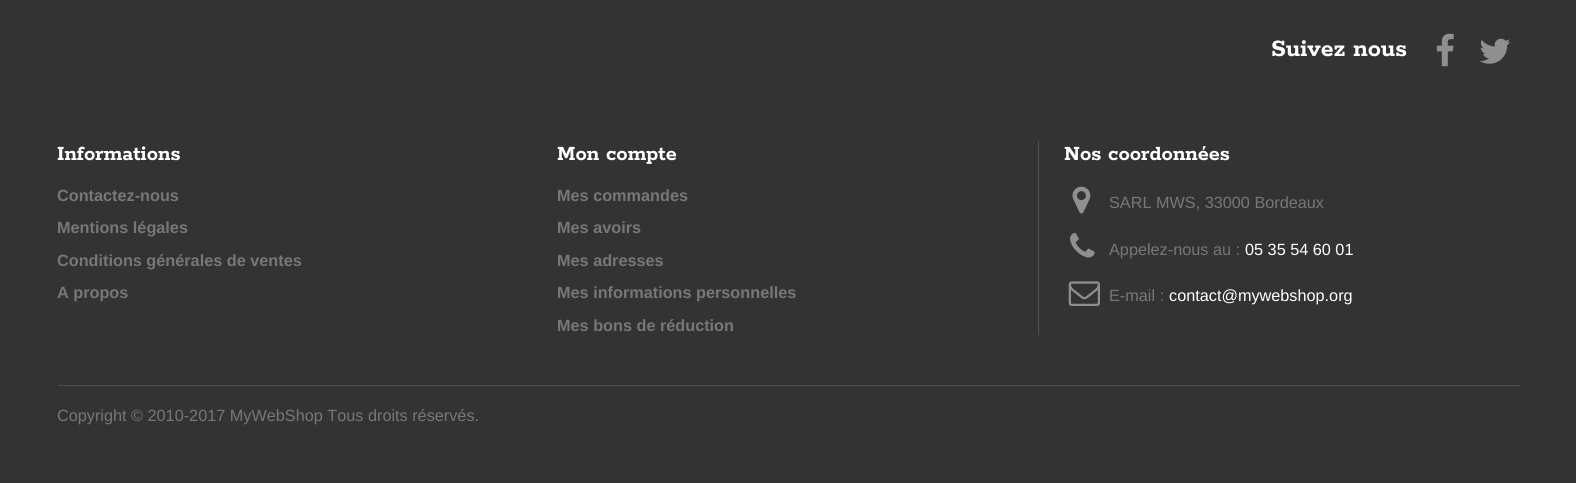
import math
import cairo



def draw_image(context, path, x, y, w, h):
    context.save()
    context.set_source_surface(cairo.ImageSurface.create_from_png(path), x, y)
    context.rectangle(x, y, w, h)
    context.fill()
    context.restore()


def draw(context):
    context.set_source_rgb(51 / 255, 51 / 255, 51 / 255)
    context.paint()
    draw_image(context, "images/1.png", 1436, 33, 18, 34)
    draw_image(context, "images/2.png", 1480, 38, 31, 26)
    context.set_source_rgb(81 / 255, 81 / 255, 81 / 255)
    context.rectangle(1038, 141, 1, 194)
    context.fill()
    draw_image(context, "images/3.png", 1072, 186, 19, 28)
    draw_image(context, "images/4.png", 1070, 233, 25, 25)
    draw_image(context, "images/5.png", 1068, 281, 32, 25)
    context.rectangle(58, 385, 1462, 1)
    context.fill()
    context.select_font_face("Rokkitt", cairo.FontSlant.NORMAL, cairo.FontWeight.BOLD)
    context.set_font_size(26.25)
    context.set_source_rgb(1, 1, 1)
    context.move_to(1271, 56)
    context.show_text("Suivez nous")
    context.set_font_size(22.5)
    context.move_to(57, 160)
    context.show_text("Informations")
    context.select_font_face("Liberation Sans", cairo.FontSlant.NORMAL, cairo.FontWeight.BOLD)
    context.set_font_size(16.25)
    context.set_source_rgb(119 / 255, 119 / 255, 119 / 255)
    context.move_to(57, 201)
    context.show_text("Contactez-nous")
    context.move_to(57, 233)
    context.show_text("Mentions légales")
    context.move_to(57, 266)
    context.show_text("Conditions générales de ventes")
    context.move_to(57, 298)
    context.show_text("A propos")
    context.select_font_face("Rokkitt", cairo.FontSlant.NORMAL, cairo.FontWeight.BOLD)
    context.set_font_size(22.5)
    context.set_source_rgb(1, 1, 1)
    context.move_to(557, 160)
    context.show_text("Mon compte")
    context.select_font_face("Liberation Sans", cairo.FontSlant.NORMAL, cairo.FontWeight.BOLD)
    context.set_font_size(16.25)
    context.set_source_rgb(119 / 255, 119 / 255, 119 / 255)
    context.move_to(557, 201)
    context.show_text("Mes commandes")
    context.move_to(557, 233)
    context.show_text("Mes avoirs")
    context.move_to(557, 266)
    context.show_text("Mes adresses")
    context.move_to(557, 298)
    context.show_text("Mes informations personnelles")
    context.move_to(557, 331)
    context.show_text("Mes bons de réduction")
    context.select_font_face("Rokkitt", cairo.FontSlant.NORMAL, cairo.FontWeight.BOLD)
    context.set_font_size(22.5)
    context.set_source_rgb(1, 1, 1)
    context.move_to(1064, 160)
    context.show_text("Nos coordonnées")
    context.select_font_face("Liberation Sans")
    context.set_font_size(16.25)
    context.set_source_rgb(119 / 255, 119 / 255, 119 / 255)
    context.move_to(1109, 208)
    context.show_text("SARL MWS, 33000 Bordeaux")
    context.move_to(1109, 255)
    context.show_text("Appelez-nous au :")
    context.set_source_rgb(1, 1, 1)
    context.move_to(1245, 255)
    context.show_text("05 35 54 60 01")
    context.set_source_rgb(119 / 255, 119 / 255, 119 / 255)
    context.move_to(1109, 301)
    context.show_text("E-mail :")
    context.set_source_rgb(1, 1, 1)
    context.move_to(1169, 301)
    context.show_text("contact@mywebshop.org")
    context.set_source_rgb(119 / 255, 119 / 255, 119 / 255)
    context.move_to(57, 421)
    context.show_text("Copyright © 2010-2017 MyWebShop Tous droits réservés.")


surface = cairo.ImageSurface(cairo.Format.RGB24, 1576, 483)
context = cairo.Context(surface)
options = cairo.FontOptions()
options.set_hint_metrics(cairo.HintMetrics.OFF)
options.set_hint_style(cairo.HintStyle.NONE)
context.set_font_options(options)
context.set_miter_limit(4)
draw(context)
surface.write_to_png("out.png")
